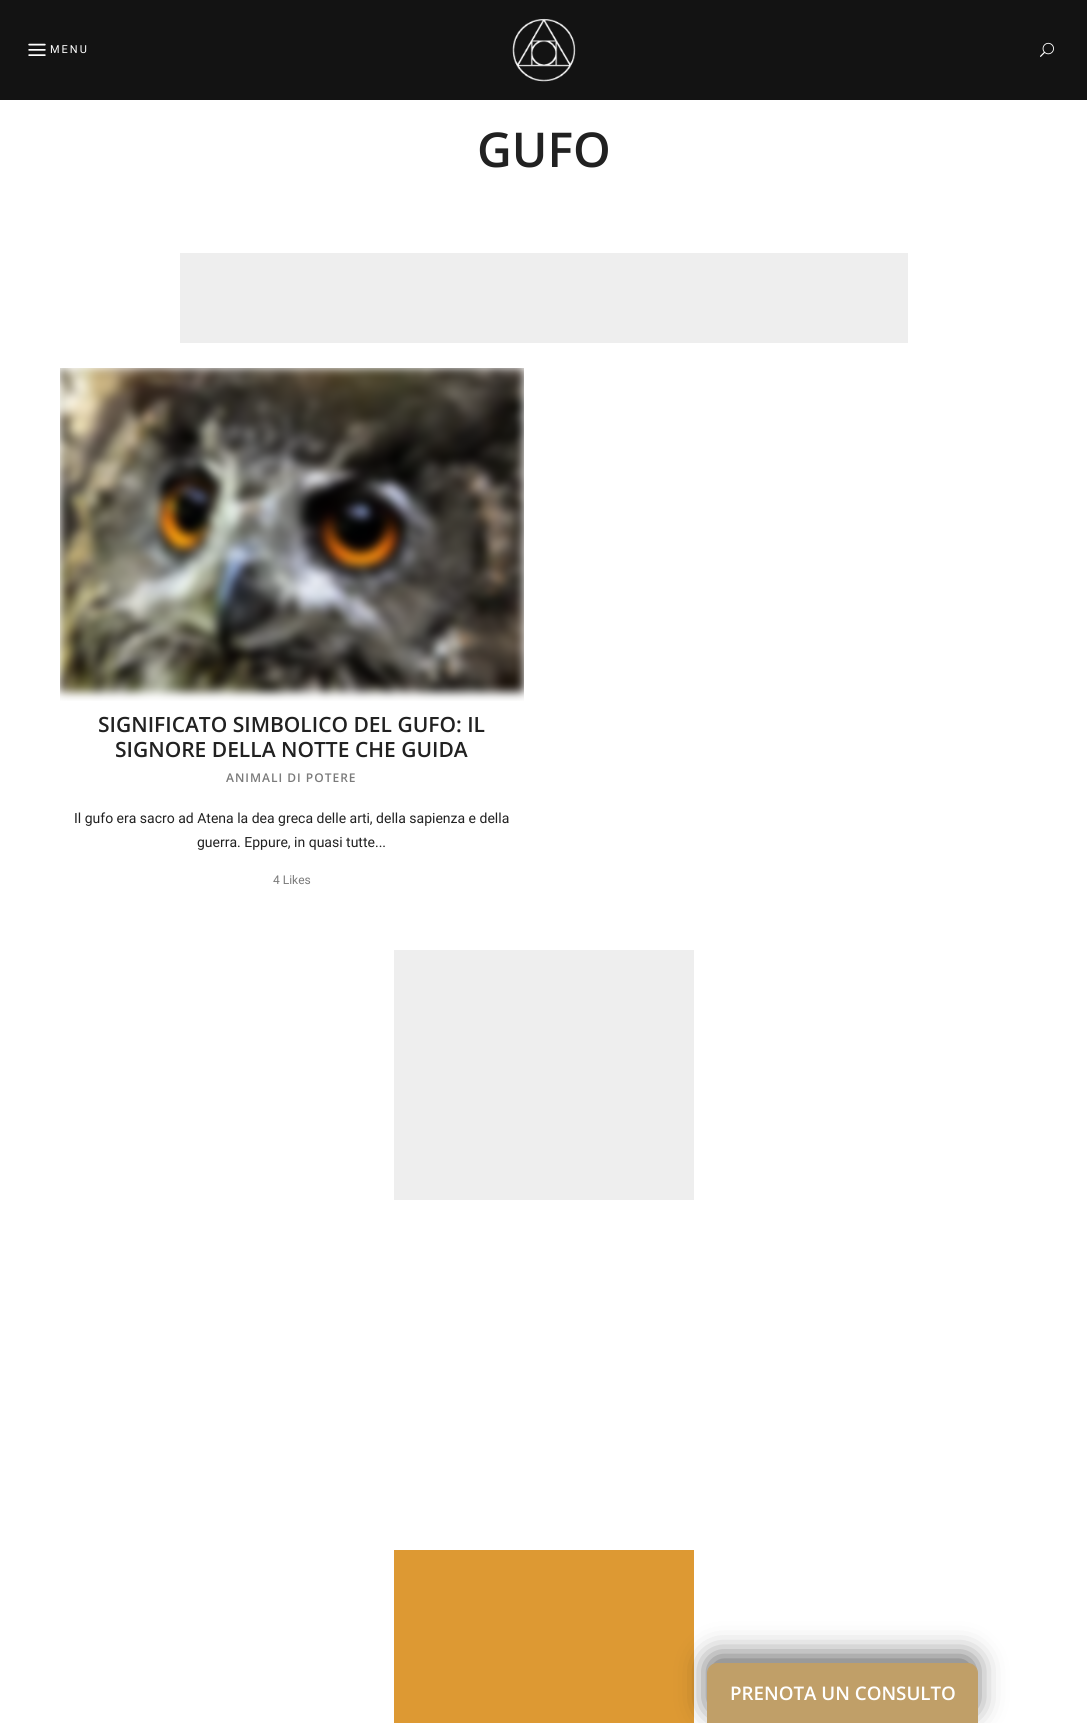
import math
import cairo



def draw_spaced(context, x, y, s, letter, word):
    context.move_to(x, y)
    for ch in s:
        context.show_text(ch)
        context.rel_move_to(letter + word * (ch == ' '), 0)


def rounded_rect(context, x, y, w, h, r):
    context.new_sub_path()
    for i, (u, v) in enumerate([(x + w - r, y + h - r), (x + r, y + h - r), (x + r, y + r), (x + w - r, y + r)]):
        context.arc(u, v, r, i * math.pi / 2, (i + 1) * math.pi / 2)
    context.close_path()


def draw_shadow(context, x, y, w, h, r, blur, alpha):
    context.push_group_with_content(cairo.Content.ALPHA)
    context.set_operator(cairo.Operator.SOURCE)
    for i in range(15, -16, -2):
        e = blur * i / 6
        if min(w, h) + 2 * e > 0:
            context.set_source_rgba(0, 0, 0, alpha * math.erfc((i - 1) / 8.5) / 2)
            rounded_rect(context, x - e, y - e, w + 2 * e, h + 2 * e, max(0, min(r + e + blur * .6, min(w, h) / 2 + e)))
            context.fill()
    context.mask(context.pop_group())


def draw_image(context, path, x, y, w, h):
    context.save()
    context.set_source_surface(cairo.ImageSurface.create_from_png(path), x, y)
    context.rectangle(x, y, w, h)
    context.fill()
    context.restore()


def draw(context):
    context.set_source_rgb(1, 1, 1)
    context.paint()
    context.set_source_rgb(19 / 255, 19 / 255, 19 / 255)
    context.rectangle(0, 0, 1087, 100)
    context.fill()
    draw_image(context, "images/1.png", 28, 43, 18, 13)
    draw_image(context, "images/2.png", 512, 18, 64, 64)
    draw_image(context, "images/3.png", 1040, 42, 14, 15)
    context.set_source_rgb(238 / 255, 238 / 255, 238 / 255)
    context.rectangle(180, 253, 728, 90)
    context.fill()
    draw_image(context, "images/4.png", 60, 368, 464, 333)
    context.rectangle(394, 950, 300, 250)
    context.fill()
    context.set_source_rgb(221 / 255, 153 / 255, 51 / 255)
    context.rectangle(394, 1550, 300, 173)
    context.fill()
    context.set_source_rgb(0, 0, 0)
    draw_shadow(context, 708, 1656, 267, 56, 8, 14, 0.63)
    context.new_path()
    context.move_to(717, 1663.5)
    context.line_to(968, 1663.5)
    context.curve_to(973, 1663.5, 977.5, 1668, 977.5, 1673)
    context.line_to(977.5, 1722.5)
    context.line_to(707.5, 1722.5)
    context.line_to(707.5, 1673)
    context.curve_to(707.5, 1668, 712, 1663.5, 717, 1663.5)
    context.close_path()
    context.set_source_rgb(192 / 255, 159 / 255, 104 / 255)
    context.set_line_width(1)
    context.stroke()
    context.new_path()
    context.move_to(716, 1664)
    context.line_to(969, 1664)
    context.curve_to(973.5, 1664, 977, 1667.5, 977, 1672)
    context.line_to(977, 1722)
    context.line_to(708, 1722)
    context.line_to(708, 1672)
    context.curve_to(708, 1667.5, 711.5, 1664, 716, 1664)
    context.close_path()
    context.fill()
    context.select_font_face("Roboto")
    context.set_font_size(11)
    context.set_source_rgb(1, 1, 1)
    draw_spaced(context, 50, 53, "MENU", 2, 0)
    context.select_font_face("Open Sans SemiBold")
    context.set_font_size(48)
    context.set_source_rgb(33 / 255, 33 / 255, 33 / 255)
    context.move_to(477, 167)
    context.show_text("GUFO")
    context.set_font_size(21)
    context.move_to(98, 732)
    context.show_text("SIGNIFICATO SIMBOLICO DEL GUFO: IL")
    context.move_to(115, 757)
    context.show_text("SIGNORE DELLA NOTTE CHE GUIDA")
    context.set_font_size(12)
    context.set_source_rgb(122 / 255, 122 / 255, 122 / 255)
    draw_spaced(context, 226, 782, "ANIMALI DI POTERE", 1, 0)
    context.select_font_face("Roboto")
    context.set_font_size(14)
    context.set_source_rgb(33 / 255, 33 / 255, 33 / 255)
    context.move_to(74, 823)
    context.show_text("Il gufo era sacro ad Atena la dea greca delle arti, della sapienza e della")
    context.move_to(197, 847)
    context.show_text("guerra. Eppure, in quasi tutte...")
    context.set_font_size(12)
    context.set_source_rgb(122 / 255, 122 / 255, 122 / 255)
    context.move_to(273, 884)
    context.show_text("4 Likes")
    context.select_font_face("Open Sans SemiBold")
    context.set_font_size(18.75)
    context.set_source_rgb(1, 1, 1)
    context.move_to(730, 1700)
    context.show_text("PRENOTA UN CONSULTO")


surface = cairo.ImageSurface(cairo.Format.RGB24, 1087, 1723)
context = cairo.Context(surface)
options = cairo.FontOptions()
options.set_hint_metrics(cairo.HintMetrics.OFF)
options.set_hint_style(cairo.HintStyle.NONE)
context.set_font_options(options)
context.set_miter_limit(4)
draw(context)
surface.write_to_png("out.png")
